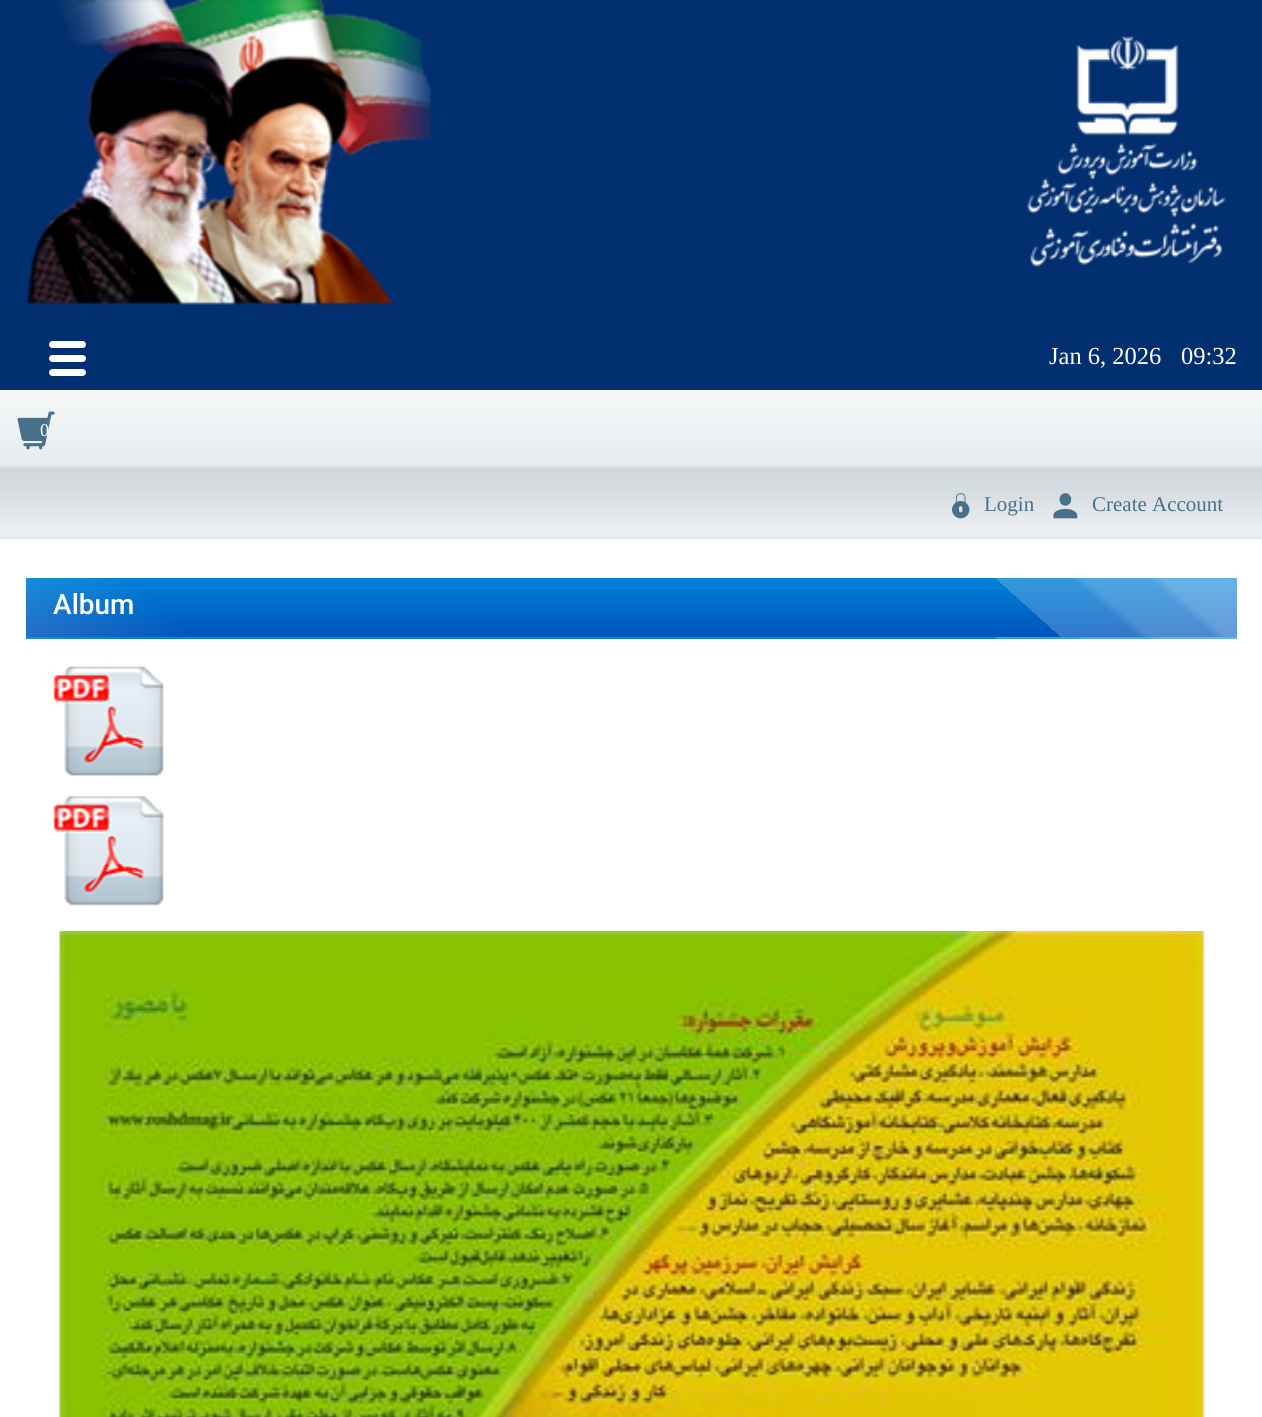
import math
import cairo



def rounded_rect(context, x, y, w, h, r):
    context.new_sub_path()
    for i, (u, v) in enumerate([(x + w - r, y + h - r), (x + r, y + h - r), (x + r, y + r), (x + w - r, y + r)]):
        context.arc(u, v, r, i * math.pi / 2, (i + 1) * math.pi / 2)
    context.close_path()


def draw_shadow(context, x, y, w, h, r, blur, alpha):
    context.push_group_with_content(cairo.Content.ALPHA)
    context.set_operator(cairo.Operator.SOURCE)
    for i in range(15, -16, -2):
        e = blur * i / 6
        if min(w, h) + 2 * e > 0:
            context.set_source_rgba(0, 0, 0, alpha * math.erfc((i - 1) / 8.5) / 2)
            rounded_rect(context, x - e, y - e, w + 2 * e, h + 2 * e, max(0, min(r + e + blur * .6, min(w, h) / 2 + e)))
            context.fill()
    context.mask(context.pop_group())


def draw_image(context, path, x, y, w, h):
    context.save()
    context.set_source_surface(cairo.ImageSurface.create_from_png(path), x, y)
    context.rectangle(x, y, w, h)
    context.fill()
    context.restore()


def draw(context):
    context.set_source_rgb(1, 1, 1)
    context.paint()
    context.set_source_rgb(1 / 255, 47 / 255, 111 / 255)
    context.rectangle(0, 0, 1262, 390)
    context.fill()
    draw_image(context, "images/1.png", 26, 0, 405, 305)
    draw_image(context, "images/2.png", 1027, 36, 199, 231)
    context.set_source_rgb(1, 1, 1)
    rounded_rect(context, 49, 341, 37, 7, 3.5)
    context.fill()
    rounded_rect(context, 49, 355, 37, 7, 3.5)
    context.fill()
    rounded_rect(context, 49, 369, 37, 7, 3.5)
    context.fill()
    gradient = cairo.LinearGradient(632, 390, 632, 539)
    gradient.add_color_stop_rgba(0, 246 / 255, 248 / 255, 249 / 255, 1)
    gradient.add_color_stop_rgba(0.5, 230 / 255, 236 / 255, 238 / 255, 1)
    gradient.add_color_stop_rgba(0.53, 207 / 255, 215 / 255, 220 / 255, 1)
    gradient.add_color_stop_rgba(0.68, 214 / 255, 221 / 255, 225 / 255, 1)
    gradient.add_color_stop_rgba(1, 240 / 255, 243 / 255, 245 / 255, 1)
    context.set_source(gradient)
    context.rectangle(0, 390, 1262, 149)
    context.fill()
    draw_image(context, "images/3.png", 17, 411, 38, 39)
    draw_image(context, "images/4.png", 952, 493, 18, 26)
    draw_image(context, "images/5.png", 1053, 493, 25, 26)
    context.save()
    context.rectangle(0, 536, 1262, 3)
    context.clip()
    context.set_source_rgb(0, 0, 0)
    draw_shadow(context, 0, 541, 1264, 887, 0, 3.5, 0.24)
    context.restore()
    gradient = cairo.LinearGradient(632, 577, 632, 637)
    gradient.add_color_stop_rgba(0, 0, 130 / 255, 216 / 255, 1)
    gradient.add_color_stop_rgba(1, 0, 84 / 255, 188 / 255, 1)
    context.set_source(gradient)
    context.rectangle(26, 578, 1211, 59)
    context.fill()
    gradient = cairo.LinearGradient(918, 290, 346, 925)
    gradient.add_color_stop_rgba(0, 1, 1, 1, 0.4)
    gradient.add_color_stop_rgba(0.06, 1, 1, 1, 0.4)
    gradient.add_color_stop_rgba(0.07, 1, 1, 1, 0.3)
    gradient.add_color_stop_rgba(0.12, 1, 1, 1, 0.3)
    gradient.add_color_stop_rgba(0.13, 1, 1, 1, 0.2)
    gradient.add_color_stop_rgba(0.19, 1, 1, 1, 0.2)
    gradient.add_color_stop_rgba(0.19, 1, 1, 1, 0)
    gradient.add_color_stop_rgba(0.87, 1, 1, 1, 0)
    gradient.add_color_stop_rgba(1, 1, 1, 1, 0.15)
    context.set_source(gradient)
    context.rectangle(26, 578, 1211, 59)
    context.fill()
    gradient = cairo.LinearGradient(918, 349, 346, 984)
    gradient.add_color_stop_rgba(0, 102 / 255, 180 / 255, 231 / 255, 1)
    gradient.add_color_stop_rgba(0.06, 102 / 255, 180 / 255, 231 / 255, 1)
    gradient.add_color_stop_rgba(0.07, 77 / 255, 167 / 255, 227 / 255, 1)
    gradient.add_color_stop_rgba(0.12, 77 / 255, 167 / 255, 227 / 255, 1)
    gradient.add_color_stop_rgba(0.13, 51 / 255, 155 / 255, 223 / 255, 1)
    gradient.add_color_stop_rgba(0.19, 51 / 255, 155 / 255, 223 / 255, 1)
    gradient.add_color_stop_rgba(0.19, 0, 130 / 255, 216 / 255, 1)
    gradient.add_color_stop_rgba(0.87, 0, 130 / 255, 216 / 255, 1)
    gradient.add_color_stop_rgba(1, 38 / 255, 148 / 255, 221 / 255, 1)
    context.set_source(gradient)
    context.rectangle(26, 637, 1211, 2)
    context.fill()
    draw_image(context, "images/6.png", 53, 666, 112, 110)
    draw_image(context, "images/7.png", 53, 795, 112, 111)
    draw_image(context, "images/8.png", 59, 931, 1146, 486)
    context.select_font_face("Liberation Serif")
    context.set_font_size(24.5)
    context.set_source_rgb(1, 1, 1)
    context.move_to(1049, 364)
    context.show_text("Jan 6, 2026")
    context.move_to(1181, 364)
    context.show_text("09:32")
    context.set_font_size(18)
    context.move_to(40, 436)
    context.show_text("0")
    context.set_font_size(21)
    context.set_source_rgb(72 / 255, 112 / 255, 139 / 255)
    context.move_to(984, 511)
    context.show_text("Login")
    context.move_to(1092, 511)
    context.show_text("Create Account")
    context.select_font_face("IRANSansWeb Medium")
    context.set_font_size(28)
    context.set_source_rgb(1, 1, 1)
    context.move_to(53, 614)
    context.show_text("Album")


surface = cairo.ImageSurface(cairo.Format.RGB24, 1262, 1417)
context = cairo.Context(surface)
options = cairo.FontOptions()
options.set_hint_metrics(cairo.HintMetrics.OFF)
options.set_hint_style(cairo.HintStyle.NONE)
context.set_font_options(options)
context.set_miter_limit(4)
draw(context)
surface.write_to_png("out.png")
